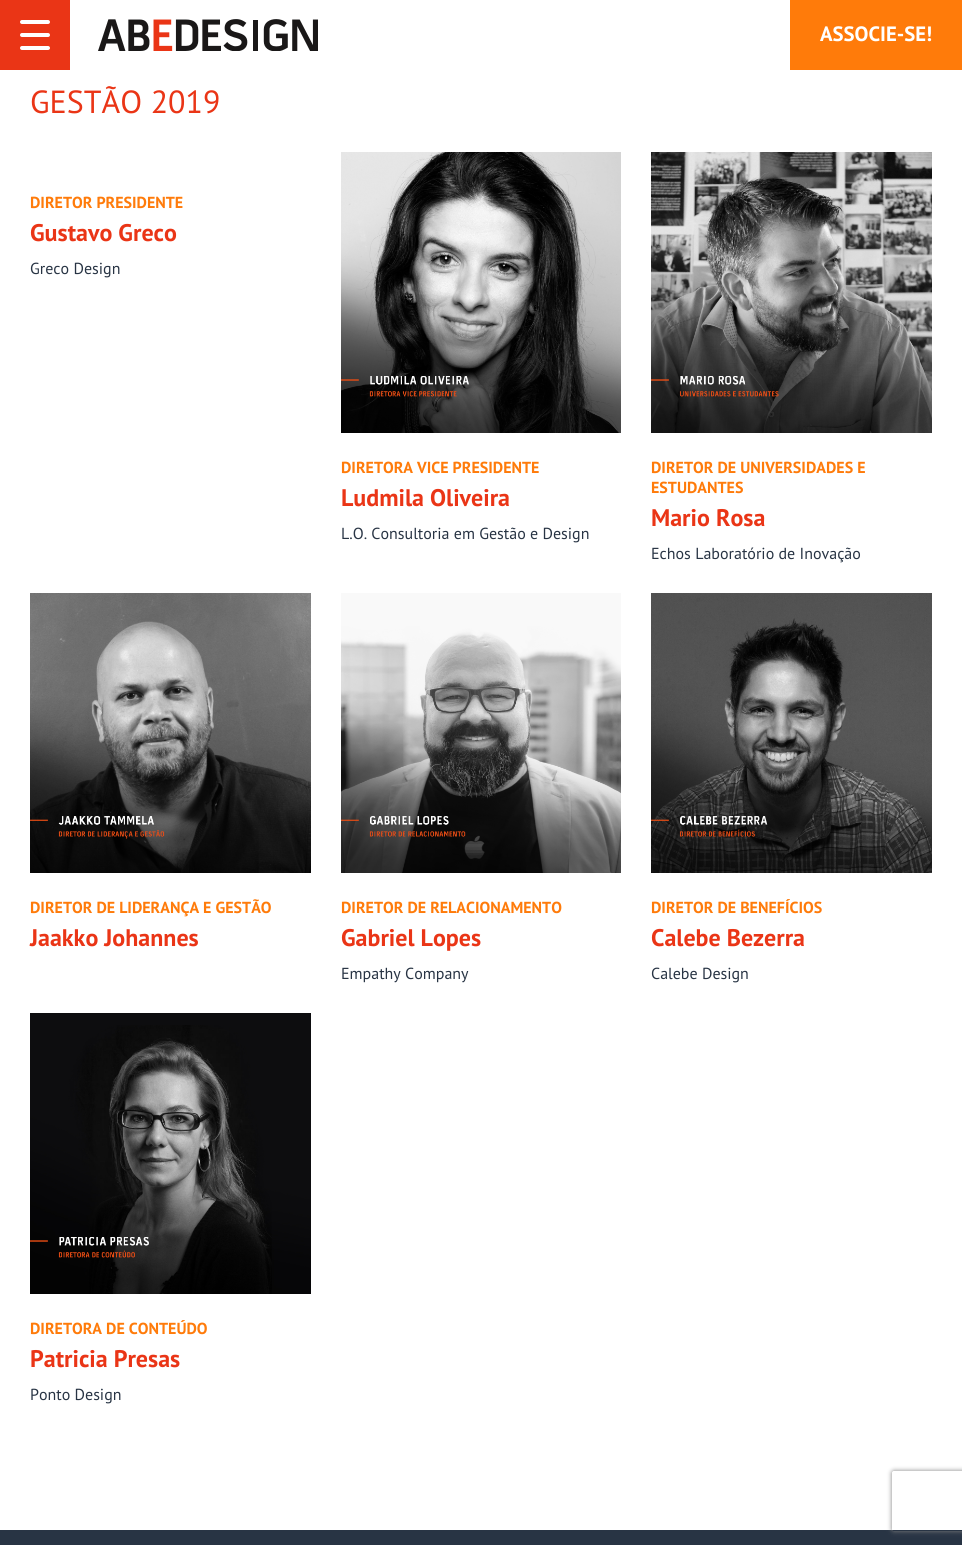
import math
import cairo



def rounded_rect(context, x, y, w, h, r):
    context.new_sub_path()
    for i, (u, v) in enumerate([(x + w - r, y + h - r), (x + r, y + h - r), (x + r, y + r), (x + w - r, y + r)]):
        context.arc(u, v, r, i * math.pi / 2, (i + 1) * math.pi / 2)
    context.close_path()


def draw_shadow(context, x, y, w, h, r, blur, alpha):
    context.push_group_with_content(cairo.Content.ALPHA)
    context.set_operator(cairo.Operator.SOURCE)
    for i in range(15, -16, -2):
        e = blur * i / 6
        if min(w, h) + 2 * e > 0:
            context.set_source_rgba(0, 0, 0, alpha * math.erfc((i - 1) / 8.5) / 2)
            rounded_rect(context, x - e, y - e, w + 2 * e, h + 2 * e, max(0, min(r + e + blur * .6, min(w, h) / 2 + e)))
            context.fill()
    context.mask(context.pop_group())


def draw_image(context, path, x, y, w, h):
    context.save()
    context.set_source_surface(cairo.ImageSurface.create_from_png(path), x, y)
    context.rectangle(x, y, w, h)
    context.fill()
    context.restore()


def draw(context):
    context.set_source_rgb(1, 1, 1)
    context.paint()
    context.set_source_rgb(234 / 255, 53 / 255, 22 / 255)
    context.rectangle(0, 0, 70, 70)
    context.fill()
    context.set_source_rgb(1, 1, 1)
    rounded_rect(context, 20, 20, 30, 4, 2)
    context.fill()
    rounded_rect(context, 20, 33, 30, 4, 2)
    context.fill()
    rounded_rect(context, 20, 46, 30, 4, 2)
    context.fill()
    draw_image(context, "images/1.png", 98, 19, 220, 32)
    context.set_source_rgb(1, 123 / 255, 10 / 255)
    context.rectangle(790, 0, 172, 70)
    context.fill()
    draw_image(context, "images/2.png", 341, 152, 280, 281)
    draw_image(context, "images/3.png", 651, 152, 281, 281)
    draw_image(context, "images/4.png", 30, 593, 281, 280)
    draw_image(context, "images/5.png", 341, 593, 280, 280)
    draw_image(context, "images/6.png", 651, 593, 281, 280)
    draw_image(context, "images/7.png", 30, 1013, 281, 281)
    context.set_source_rgb(40 / 255, 52 / 255, 68 / 255)
    context.rectangle(0, 1530, 962, 15)
    context.fill()
    context.save()
    context.set_fill_rule(cairo.FillRule.EVEN_ODD)
    context.new_path()
    context.move_to(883, 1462)
    context.line_to(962, 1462)
    context.line_to(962, 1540)
    context.line_to(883, 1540)
    context.close_path()
    context.move_to(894, 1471)
    context.line_to(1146, 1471)
    context.curve_to(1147, 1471, 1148, 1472, 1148, 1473)
    context.line_to(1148, 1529)
    context.curve_to(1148, 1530, 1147, 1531, 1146, 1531)
    context.line_to(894, 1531)
    context.curve_to(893, 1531, 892, 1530, 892, 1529)
    context.line_to(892, 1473)
    context.curve_to(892, 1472, 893, 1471, 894, 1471)
    context.close_path()
    context.clip()
    context.set_source_rgb(128 / 255, 128 / 255, 128 / 255)
    draw_shadow(context, 892, 1471, 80, 60, 2, 2.5, 1)
    context.restore()
    context.select_font_face("PT Sans", cairo.FontSlant.NORMAL, cairo.FontWeight.BOLD)
    context.set_font_size(20.75)
    context.set_source_rgb(1, 1, 1)
    context.move_to(820, 41)
    context.show_text("ASSOCIE-SE!")
    context.select_font_face("PT Sans")
    context.set_font_size(32)
    context.set_source_rgb(234 / 255, 53 / 255, 22 / 255)
    context.move_to(30, 113)
    context.show_text("GESTÃO 2019")
    context.select_font_face("PT Sans", cairo.FontSlant.NORMAL, cairo.FontWeight.BOLD)
    context.set_font_size(16)
    context.set_source_rgb(1, 123 / 255, 10 / 255)
    context.move_to(30, 208)
    context.show_text("DIRETOR PRESIDENTE")
    context.set_font_size(24)
    context.set_source_rgb(234 / 255, 53 / 255, 22 / 255)
    context.move_to(30, 241)
    context.show_text("Gustavo Greco")
    context.select_font_face("PT Sans")
    context.set_font_size(16)
    context.set_source_rgb(40 / 255, 52 / 255, 68 / 255)
    context.move_to(30, 274)
    context.show_text("Greco Design")
    context.select_font_face("PT Sans", cairo.FontSlant.NORMAL, cairo.FontWeight.BOLD)
    context.set_source_rgb(1, 123 / 255, 10 / 255)
    context.move_to(341, 473)
    context.show_text("DIRETORA VICE PRESIDENTE")
    context.set_font_size(24)
    context.set_source_rgb(234 / 255, 53 / 255, 22 / 255)
    context.move_to(341, 506)
    context.show_text("Ludmila Oliveira")
    context.select_font_face("PT Sans")
    context.set_font_size(16)
    context.set_source_rgb(40 / 255, 52 / 255, 68 / 255)
    context.move_to(341, 539)
    context.show_text("L.O. Consultoria em Gestão e Design")
    context.select_font_face("PT Sans", cairo.FontSlant.NORMAL, cairo.FontWeight.BOLD)
    context.set_source_rgb(1, 123 / 255, 10 / 255)
    context.move_to(651, 473)
    context.show_text("DIRETOR DE UNIVERSIDADES E")
    context.move_to(651, 493)
    context.show_text("ESTUDANTES")
    context.set_font_size(24)
    context.set_source_rgb(234 / 255, 53 / 255, 22 / 255)
    context.move_to(651, 526)
    context.show_text("Mario Rosa")
    context.select_font_face("PT Sans")
    context.set_font_size(16)
    context.set_source_rgb(40 / 255, 52 / 255, 68 / 255)
    context.move_to(651, 559)
    context.show_text("Echos Laboratório de Inovação")
    context.select_font_face("PT Sans", cairo.FontSlant.NORMAL, cairo.FontWeight.BOLD)
    context.set_source_rgb(1, 123 / 255, 10 / 255)
    context.move_to(30, 913)
    context.show_text("DIRETOR DE LIDERANÇA E GESTÃO")
    context.set_font_size(24)
    context.set_source_rgb(234 / 255, 53 / 255, 22 / 255)
    context.move_to(30, 946)
    context.show_text("Jaakko Johannes")
    context.set_font_size(16)
    context.set_source_rgb(1, 123 / 255, 10 / 255)
    context.move_to(341, 913)
    context.show_text("DIRETOR DE RELACIONAMENTO")
    context.set_font_size(24)
    context.set_source_rgb(234 / 255, 53 / 255, 22 / 255)
    context.move_to(341, 946)
    context.show_text("Gabriel Lopes")
    context.select_font_face("PT Sans")
    context.set_font_size(16)
    context.set_source_rgb(40 / 255, 52 / 255, 68 / 255)
    context.move_to(341, 979)
    context.show_text("Empathy Company")
    context.select_font_face("PT Sans", cairo.FontSlant.NORMAL, cairo.FontWeight.BOLD)
    context.set_source_rgb(1, 123 / 255, 10 / 255)
    context.move_to(651, 913)
    context.show_text("DIRETOR DE BENEFÍCIOS")
    context.set_font_size(24)
    context.set_source_rgb(234 / 255, 53 / 255, 22 / 255)
    context.move_to(651, 946)
    context.show_text("Calebe Bezerra")
    context.select_font_face("PT Sans")
    context.set_font_size(16)
    context.set_source_rgb(40 / 255, 52 / 255, 68 / 255)
    context.move_to(651, 979)
    context.show_text("Calebe Design")
    context.select_font_face("PT Sans", cairo.FontSlant.NORMAL, cairo.FontWeight.BOLD)
    context.set_source_rgb(1, 123 / 255, 10 / 255)
    context.move_to(30, 1334)
    context.show_text("DIRETORA DE CONTEÚDO")
    context.set_font_size(24)
    context.set_source_rgb(234 / 255, 53 / 255, 22 / 255)
    context.move_to(30, 1367)
    context.show_text("Patricia Presas")
    context.select_font_face("PT Sans")
    context.set_font_size(16)
    context.set_source_rgb(40 / 255, 52 / 255, 68 / 255)
    context.move_to(30, 1400)
    context.show_text("Ponto Design")


surface = cairo.ImageSurface(cairo.Format.RGB24, 962, 1545)
context = cairo.Context(surface)
options = cairo.FontOptions()
options.set_hint_metrics(cairo.HintMetrics.OFF)
options.set_hint_style(cairo.HintStyle.NONE)
context.set_font_options(options)
context.set_miter_limit(4)
draw(context)
surface.write_to_png("out.png")
